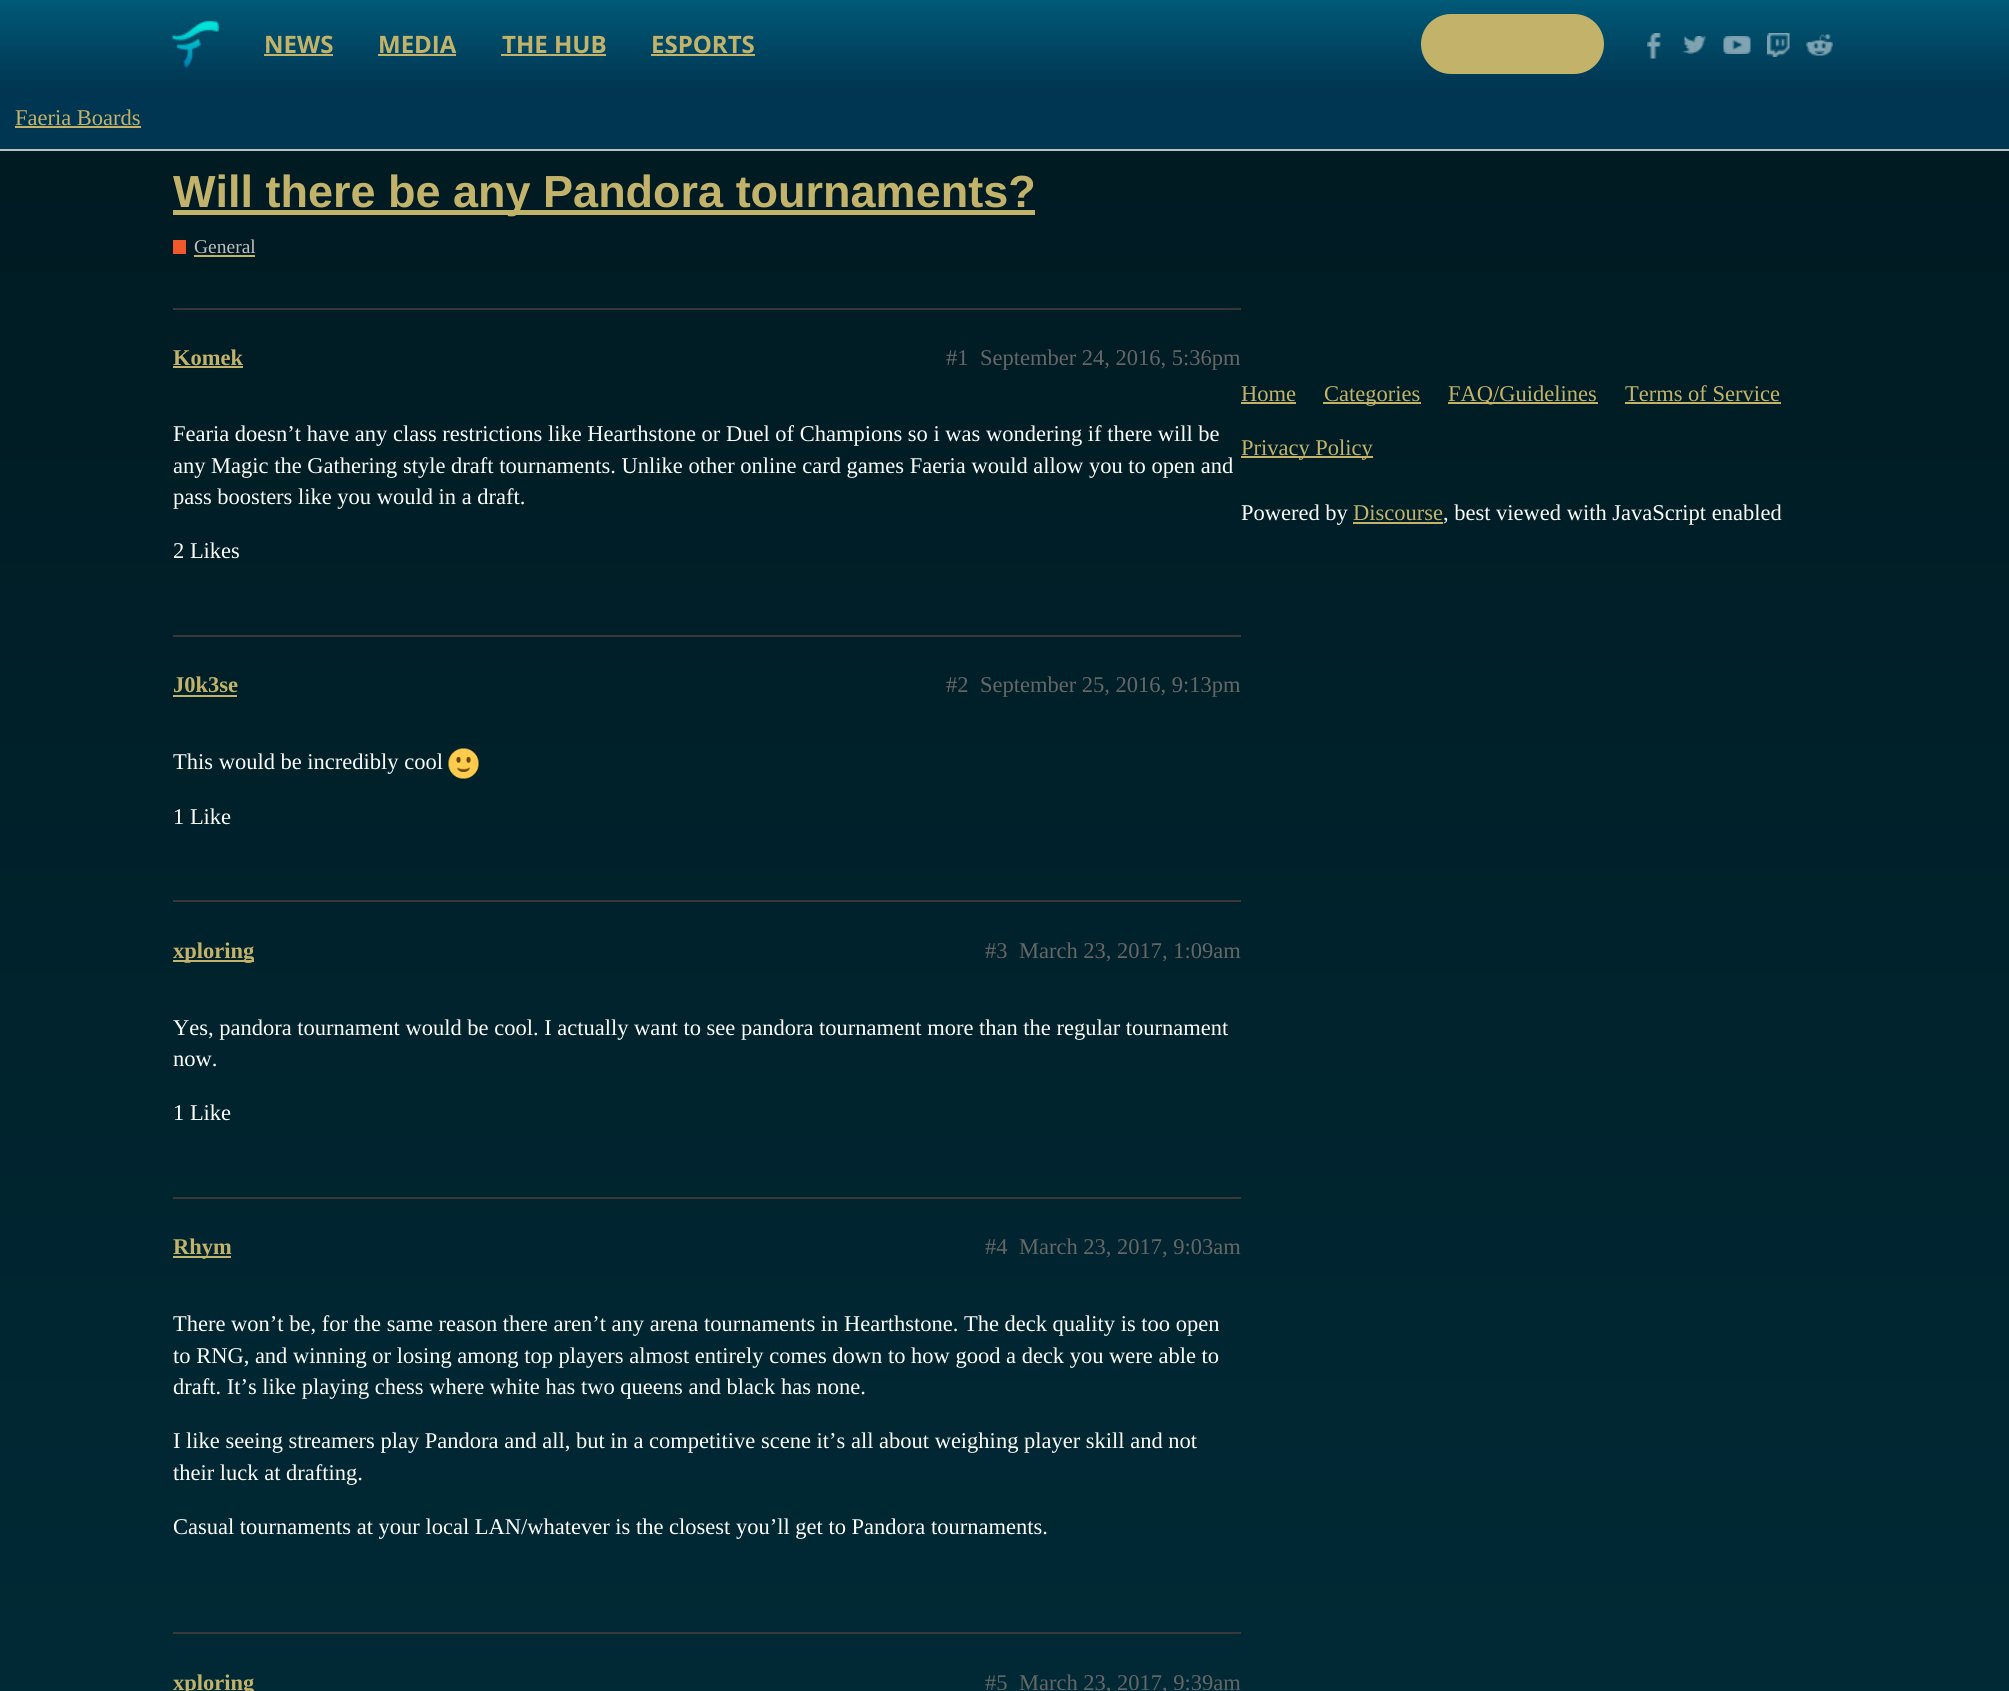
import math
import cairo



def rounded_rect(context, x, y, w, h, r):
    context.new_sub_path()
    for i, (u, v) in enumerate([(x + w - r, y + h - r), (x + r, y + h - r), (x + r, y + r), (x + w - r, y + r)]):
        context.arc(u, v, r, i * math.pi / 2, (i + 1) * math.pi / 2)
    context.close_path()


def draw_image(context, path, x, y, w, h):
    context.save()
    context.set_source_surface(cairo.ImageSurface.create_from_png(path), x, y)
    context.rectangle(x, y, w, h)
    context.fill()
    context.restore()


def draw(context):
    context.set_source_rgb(1, 1, 1)
    context.paint()
    gradient = cairo.LinearGradient(1005, 0, 1005, 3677)
    gradient.add_color_stop_rgba(0, 0, 25 / 255, 32 / 255, 1)
    gradient.add_color_stop_rgba(1, 0, 61 / 255, 79 / 255, 1)
    context.set_source(gradient)
    context.rectangle(0, 151, 2009, 1540)
    context.fill()
    gradient = cairo.LinearGradient(1005, 0, 1005, 87)
    gradient.add_color_stop_rgba(0, 0, 90 / 255, 120 / 255, 1)
    gradient.add_color_stop_rgba(1, 0, 54 / 255, 82 / 255, 1)
    context.set_source(gradient)
    context.rectangle(0, 0, 2009, 87)
    context.fill()
    draw_image(context, "images/1.png", 172, 19, 47, 49)
    context.set_source_rgb(195 / 255, 179 / 255, 106 / 255)
    context.rectangle(264, 54, 69, 2)
    context.fill()
    context.rectangle(378, 54, 78, 2)
    context.fill()
    context.rectangle(501, 54, 105, 2)
    context.fill()
    context.rectangle(651, 54, 104, 2)
    context.fill()
    rounded_rect(context, 1421, 14, 183, 60, 30)
    context.fill()
    draw_image(context, "images/2.png", 1647, 33, 14, 26)
    draw_image(context, "images/3.png", 1683, 36, 24, 18)
    draw_image(context, "images/4.png", 1723, 36, 28, 18)
    draw_image(context, "images/5.png", 1767, 33, 23, 24)
    draw_image(context, "images/6.png", 1806, 34, 27, 22)
    context.set_source_rgb(0, 54 / 255, 82 / 255)
    context.rectangle(0, 87, 2009, 62)
    context.fill()
    context.set_source_rgb(189 / 255, 193 / 255, 197 / 255)
    context.rectangle(0, 149, 2009, 2)
    context.fill()
    context.set_source_rgb(195 / 255, 179 / 255, 106 / 255)
    context.rectangle(15, 126, 126, 2)
    context.fill()
    context.rectangle(173, 210, 862, 5)
    context.fill()
    context.set_source_rgb(241 / 255, 89 / 255, 42 / 255)
    context.rectangle(173, 240, 13, 14)
    context.fill()
    context.set_source_rgb(195 / 255, 179 / 255, 106 / 255)
    context.rectangle(194, 255, 61, 2)
    context.fill()
    context.set_source_rgb(56 / 255, 56 / 255, 56 / 255)
    context.rectangle(173, 308, 1068, 2)
    context.fill()
    context.set_source_rgb(195 / 255, 179 / 255, 106 / 255)
    context.rectangle(173, 366, 70, 2)
    context.fill()
    context.set_source_rgb(56 / 255, 56 / 255, 56 / 255)
    context.rectangle(173, 635, 1068, 2)
    context.fill()
    context.set_source_rgb(195 / 255, 179 / 255, 106 / 255)
    context.rectangle(173, 695, 64, 2)
    context.fill()
    draw_image(context, "images/7.png", 448, 748, 31, 31)
    context.set_source_rgb(56 / 255, 56 / 255, 56 / 255)
    context.rectangle(173, 900, 1068, 2)
    context.fill()
    context.set_source_rgb(195 / 255, 179 / 255, 106 / 255)
    context.rectangle(173, 960, 81, 2)
    context.fill()
    context.set_source_rgb(56 / 255, 56 / 255, 56 / 255)
    context.rectangle(173, 1197, 1068, 2)
    context.fill()
    context.set_source_rgb(195 / 255, 179 / 255, 106 / 255)
    context.rectangle(173, 1256, 58, 2)
    context.fill()
    context.set_source_rgb(56 / 255, 56 / 255, 56 / 255)
    context.rectangle(173, 1632, 1068, 2)
    context.fill()
    context.set_source_rgb(195 / 255, 179 / 255, 106 / 255)
    context.rectangle(1241, 402, 55, 2)
    context.fill()
    context.rectangle(1323, 402, 98, 2)
    context.fill()
    context.rectangle(1448, 402, 150, 2)
    context.fill()
    context.rectangle(1625, 402, 156, 2)
    context.fill()
    context.rectangle(1241, 456, 132, 2)
    context.fill()
    context.rectangle(1353, 522, 90, 2)
    context.fill()
    context.select_font_face("Open Sans", cairo.FontSlant.NORMAL, cairo.FontWeight.BOLD)
    context.set_font_size(24)
    context.move_to(264, 53)
    context.show_text("NEWS")
    context.move_to(378, 53)
    context.show_text("MEDIA")
    context.move_to(502, 53)
    context.show_text("THE HUB")
    context.move_to(651, 53)
    context.show_text("ESPORTS")
    context.select_font_face("Liberation Serif")
    context.set_font_size(22.5)
    context.move_to(15, 125)
    context.show_text("Faeria Boards")
    context.select_font_face("Liberation Sans", cairo.FontSlant.NORMAL, cairo.FontWeight.BOLD)
    context.set_font_size(45)
    context.move_to(173, 207)
    context.show_text("Will there be any Pandora tournaments?")
    context.select_font_face("Liberation Serif")
    context.set_font_size(19.5)
    context.set_source_rgb(191 / 255, 191 / 255, 191 / 255)
    context.move_to(194, 253)
    context.show_text("General")
    context.select_font_face("Liberation Serif", cairo.FontSlant.NORMAL, cairo.FontWeight.BOLD)
    context.set_font_size(22.5)
    context.set_source_rgb(195 / 255, 179 / 255, 106 / 255)
    context.move_to(173, 365)
    context.show_text("Komek")
    context.select_font_face("Liberation Serif")
    context.set_source_rgb(102 / 255, 102 / 255, 102 / 255)
    context.move_to(946, 365)
    context.show_text("#1")
    context.move_to(980, 365)
    context.show_text("September 24, 2016, 5:36pm")
    context.set_source_rgb(1, 1, 1)
    context.move_to(173, 441)
    context.show_text("Fearia doesn’t have any class restrictions like Hearthstone or Duel of Champions so i was wondering if there will be")
    context.move_to(173, 473)
    context.show_text("any Magic the Gathering style draft tournaments. Unlike other online card games Faeria would allow you to open and")
    context.move_to(173, 504)
    context.show_text("pass boosters like you would in a draft.")
    context.move_to(173, 558)
    context.show_text("2 Likes")
    context.select_font_face("Liberation Serif", cairo.FontSlant.NORMAL, cairo.FontWeight.BOLD)
    context.set_source_rgb(195 / 255, 179 / 255, 106 / 255)
    context.move_to(173, 692)
    context.show_text("J0k3se")
    context.select_font_face("Liberation Serif")
    context.set_source_rgb(102 / 255, 102 / 255, 102 / 255)
    context.move_to(946, 692)
    context.show_text("#2")
    context.move_to(980, 692)
    context.show_text("September 25, 2016, 9:13pm")
    context.save()
    context.rectangle(173, 725, 1068, 76)
    context.clip()
    context.set_source_rgb(1, 1, 1)
    context.move_to(173, 769)
    context.show_text("This would be incredibly cool")
    context.restore()
    context.set_source_rgb(1, 1, 1)
    context.move_to(173, 824)
    context.show_text("1 Like")
    context.select_font_face("Liberation Serif", cairo.FontSlant.NORMAL, cairo.FontWeight.BOLD)
    context.set_source_rgb(195 / 255, 179 / 255, 106 / 255)
    context.move_to(173, 958)
    context.show_text("xploring")
    context.select_font_face("Liberation Serif")
    context.set_source_rgb(102 / 255, 102 / 255, 102 / 255)
    context.move_to(985, 958)
    context.show_text("#3")
    context.move_to(1019, 958)
    context.show_text("March 23, 2017, 1:09am")
    context.set_source_rgb(1, 1, 1)
    context.move_to(173, 1035)
    context.show_text("Yes, pandora tournament would be cool. I actually want to see pandora tournament more than the regular tournament")
    context.move_to(173, 1066)
    context.show_text("now.")
    context.move_to(173, 1120)
    context.show_text("1 Like")
    context.select_font_face("Liberation Serif", cairo.FontSlant.NORMAL, cairo.FontWeight.BOLD)
    context.set_source_rgb(195 / 255, 179 / 255, 106 / 255)
    context.move_to(173, 1254)
    context.show_text("Rhym")
    context.select_font_face("Liberation Serif")
    context.set_source_rgb(102 / 255, 102 / 255, 102 / 255)
    context.move_to(985, 1254)
    context.show_text("#4")
    context.move_to(1019, 1254)
    context.show_text("March 23, 2017, 9:03am")
    context.save()
    context.rectangle(173, 1286, 1068, 279)
    context.clip()
    context.set_source_rgb(1, 1, 1)
    context.move_to(173, 1331)
    context.show_text("There won’t be, for the same reason there aren’t any arena tournaments in Hearthstone. The deck quality is too open")
    context.restore()
    context.set_source_rgb(1, 1, 1)
    context.move_to(173, 1363)
    context.show_text("to RNG, and winning or losing among top players almost entirely comes down to how good a deck you were able to")
    context.move_to(173, 1394)
    context.show_text("draft. It’s like playing chess where white has two queens and black has none.")
    context.move_to(173, 1448)
    context.show_text("I like seeing streamers play Pandora and all, but in a competitive scene it’s all about weighing player skill and not")
    context.move_to(173, 1480)
    context.show_text("their luck at drafting.")
    context.move_to(173, 1534)
    context.show_text("Casual tournaments at your local LAN/whatever is the closest you’ll get to Pandora tournaments.")
    context.select_font_face("Liberation Serif", cairo.FontSlant.NORMAL, cairo.FontWeight.BOLD)
    context.set_source_rgb(195 / 255, 179 / 255, 106 / 255)
    context.move_to(173, 1690)
    context.show_text("xploring")
    context.select_font_face("Liberation Serif")
    context.set_source_rgb(102 / 255, 102 / 255, 102 / 255)
    context.move_to(985, 1690)
    context.show_text("#5")
    context.move_to(1019, 1690)
    context.show_text("March 23, 2017, 9:39am")
    context.set_source_rgb(195 / 255, 179 / 255, 106 / 255)
    context.move_to(1241, 401)
    context.show_text("Home")
    context.move_to(1324, 401)
    context.show_text("Categories")
    context.move_to(1448, 401)
    context.show_text("FAQ/Guidelines")
    context.move_to(1625, 401)
    context.show_text("Terms of Service")
    context.move_to(1241, 455)
    context.show_text("Privacy Policy")
    context.set_source_rgb(1, 1, 1)
    context.move_to(1241, 520)
    context.show_text("Powered by")
    context.set_source_rgb(195 / 255, 179 / 255, 106 / 255)
    context.move_to(1353, 520)
    context.show_text("Discourse")
    context.set_source_rgb(1, 1, 1)
    context.move_to(1443, 520)
    context.show_text(", best viewed with JavaScript enabled")


surface = cairo.ImageSurface(cairo.Format.RGB24, 2009, 1691)
context = cairo.Context(surface)
options = cairo.FontOptions()
options.set_hint_metrics(cairo.HintMetrics.OFF)
options.set_hint_style(cairo.HintStyle.NONE)
context.set_font_options(options)
context.set_miter_limit(4)
draw(context)
surface.write_to_png("out.png")
